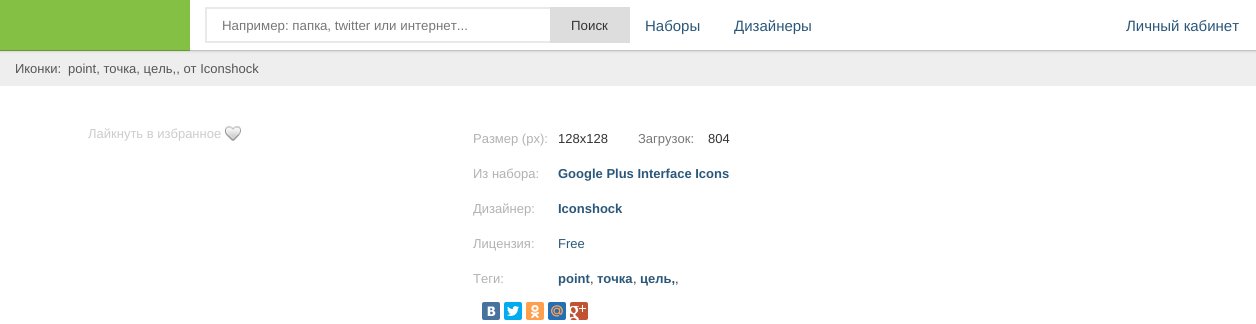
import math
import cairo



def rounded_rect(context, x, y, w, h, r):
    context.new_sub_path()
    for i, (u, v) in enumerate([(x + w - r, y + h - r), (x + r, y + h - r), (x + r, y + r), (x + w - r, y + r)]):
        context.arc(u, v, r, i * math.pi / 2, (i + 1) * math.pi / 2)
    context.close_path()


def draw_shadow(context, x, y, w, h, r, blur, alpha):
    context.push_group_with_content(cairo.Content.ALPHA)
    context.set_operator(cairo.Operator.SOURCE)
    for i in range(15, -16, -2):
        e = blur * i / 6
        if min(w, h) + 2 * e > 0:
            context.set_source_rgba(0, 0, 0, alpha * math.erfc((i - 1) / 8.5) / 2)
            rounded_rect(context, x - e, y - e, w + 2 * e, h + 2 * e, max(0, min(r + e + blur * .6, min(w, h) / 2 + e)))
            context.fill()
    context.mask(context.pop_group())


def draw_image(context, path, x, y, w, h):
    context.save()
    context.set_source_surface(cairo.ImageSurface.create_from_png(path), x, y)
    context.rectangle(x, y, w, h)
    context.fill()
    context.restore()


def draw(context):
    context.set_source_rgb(238 / 255, 238 / 255, 238 / 255)
    context.paint()
    context.set_source_rgb(214 / 255, 214 / 255, 214 / 255)
    context.rectangle(190, 50, 1066, 1)
    context.fill()
    context.set_source_rgb(0, 0, 0)
    draw_shadow(context, 0, 2, 1256, 50, 0, 1, 0.1)
    context.set_source_rgb(1, 1, 1)
    context.rectangle(190, 0, 1066, 50)
    context.fill()
    context.set_source_rgb(132 / 255, 192 / 255, 68 / 255)
    context.rectangle(0, 0, 190, 50)
    context.fill()
    context.set_source_rgb(102 / 255, 151 / 255, 49 / 255)
    context.rectangle(0, 50, 190, 1)
    context.fill()
    context.rectangle(206, 8, 393, 34)
    context.set_source_rgb(233 / 255, 233 / 255, 233 / 255)
    context.stroke()
    context.set_source_rgb(221 / 255, 221 / 255, 221 / 255)
    context.rectangle(550, 7, 80, 36)
    context.fill()
    context.set_source_rgb(1, 1, 1)
    context.rectangle(0, 86, 1256, 238)
    context.fill()
    draw_image(context, "images/1.png", 225, 126, 16, 15)
    context.set_source_rgb(72 / 255, 114 / 255, 158 / 255)
    rounded_rect(context, 482, 302, 18, 18, 2)
    context.fill()
    draw_image(context, "images/2.png", 487, 306, 9, 10)
    context.set_source_rgb(0, 172 / 255, 237 / 255)
    rounded_rect(context, 504, 302, 18, 18, 2)
    context.fill()
    draw_image(context, "images/3.png", 507, 306, 12, 10)
    context.set_source_rgb(1, 159 / 255, 77 / 255)
    rounded_rect(context, 526, 302, 18, 18, 2)
    context.fill()
    draw_image(context, "images/4.png", 531, 305, 8, 13)
    context.set_source_rgb(34 / 255, 110 / 255, 183 / 255)
    rounded_rect(context, 548, 302, 18, 18, 2)
    context.fill()
    draw_image(context, "images/5.png", 551, 305, 12, 12)
    context.set_source_rgb(194 / 255, 82 / 255, 52 / 255)
    rounded_rect(context, 570, 302, 18, 18, 2)
    context.fill()
    draw_image(context, "images/6.png", 570, 305, 16, 15)
    context.select_font_face("Liberation Sans")
    context.set_font_size(13.3)
    context.set_source_rgb(119 / 255, 119 / 255, 119 / 255)
    context.move_to(222, 30)
    context.show_text("Например: папка, twitter или интернет...")
    context.set_source_rgb(51 / 255, 51 / 255, 51 / 255)
    context.move_to(571, 30)
    context.show_text("Поиск")
    context.set_font_size(15)
    context.set_source_rgb(43 / 255, 88 / 255, 122 / 255)
    context.move_to(645, 31)
    context.show_text("Наборы")
    context.move_to(734, 31)
    context.show_text("Дизайнеры")
    context.move_to(1126, 31)
    context.show_text("Личный кабинет")
    context.set_font_size(13)
    context.set_source_rgb(85 / 255, 85 / 255, 85 / 255)
    context.move_to(15, 73)
    context.show_text("Иконки:")
    context.move_to(68, 73)
    context.show_text("point, точка, цель,, от Iconshock")
    context.set_source_rgb(204 / 255, 204 / 255, 204 / 255)
    context.move_to(88, 138)
    context.show_text("Лайкнуть в избранное")
    context.set_source_rgb(178 / 255, 178 / 255, 178 / 255)
    context.move_to(473, 143)
    context.show_text("Размер (px):")
    context.set_source_rgb(51 / 255, 51 / 255, 51 / 255)
    context.move_to(558, 143)
    context.show_text("128x128")
    context.set_source_rgb(119 / 255, 119 / 255, 119 / 255)
    context.move_to(638, 143)
    context.show_text("Загрузок:")
    context.set_source_rgb(51 / 255, 51 / 255, 51 / 255)
    context.move_to(708, 143)
    context.show_text("804")
    context.set_source_rgb(178 / 255, 178 / 255, 178 / 255)
    context.move_to(473, 178)
    context.show_text("Из набора:")
    context.select_font_face("Liberation Sans", cairo.FontSlant.NORMAL, cairo.FontWeight.BOLD)
    context.set_source_rgb(43 / 255, 88 / 255, 122 / 255)
    context.move_to(558, 178)
    context.show_text("Google Plus Interface Icons")
    context.select_font_face("Liberation Sans")
    context.set_source_rgb(178 / 255, 178 / 255, 178 / 255)
    context.move_to(473, 213)
    context.show_text("Дизайнер:")
    context.select_font_face("Liberation Sans", cairo.FontSlant.NORMAL, cairo.FontWeight.BOLD)
    context.set_source_rgb(43 / 255, 88 / 255, 122 / 255)
    context.move_to(558, 213)
    context.show_text("Iconshock")
    context.select_font_face("Liberation Sans")
    context.set_source_rgb(178 / 255, 178 / 255, 178 / 255)
    context.move_to(473, 248)
    context.show_text("Лицензия:")
    context.set_source_rgb(43 / 255, 88 / 255, 122 / 255)
    context.move_to(558, 248)
    context.show_text("Free")
    context.set_source_rgb(178 / 255, 178 / 255, 178 / 255)
    context.move_to(473, 283)
    context.show_text("Теги:")
    context.select_font_face("Liberation Sans", cairo.FontSlant.NORMAL, cairo.FontWeight.BOLD)
    context.set_source_rgb(43 / 255, 88 / 255, 122 / 255)
    context.move_to(558, 283)
    context.show_text("point")
    context.select_font_face("Liberation Sans")
    context.set_source_rgb(51 / 255, 51 / 255, 51 / 255)
    context.move_to(590, 283)
    context.show_text(",")
    context.select_font_face("Liberation Sans", cairo.FontSlant.NORMAL, cairo.FontWeight.BOLD)
    context.set_source_rgb(43 / 255, 88 / 255, 122 / 255)
    context.move_to(597, 283)
    context.show_text("точка")
    context.select_font_face("Liberation Sans")
    context.set_source_rgb(51 / 255, 51 / 255, 51 / 255)
    context.move_to(633, 283)
    context.show_text(",")
    context.select_font_face("Liberation Sans", cairo.FontSlant.NORMAL, cairo.FontWeight.BOLD)
    context.set_source_rgb(43 / 255, 88 / 255, 122 / 255)
    context.move_to(640, 283)
    context.show_text("цель,")
    context.select_font_face("Liberation Sans")
    context.set_source_rgb(51 / 255, 51 / 255, 51 / 255)
    context.move_to(675, 283)
    context.show_text(",")


surface = cairo.ImageSurface(cairo.Format.RGB24, 1256, 324)
context = cairo.Context(surface)
options = cairo.FontOptions()
options.set_hint_metrics(cairo.HintMetrics.OFF)
options.set_hint_style(cairo.HintStyle.NONE)
context.set_font_options(options)
context.set_miter_limit(4)
draw(context)
surface.write_to_png("out.png")
